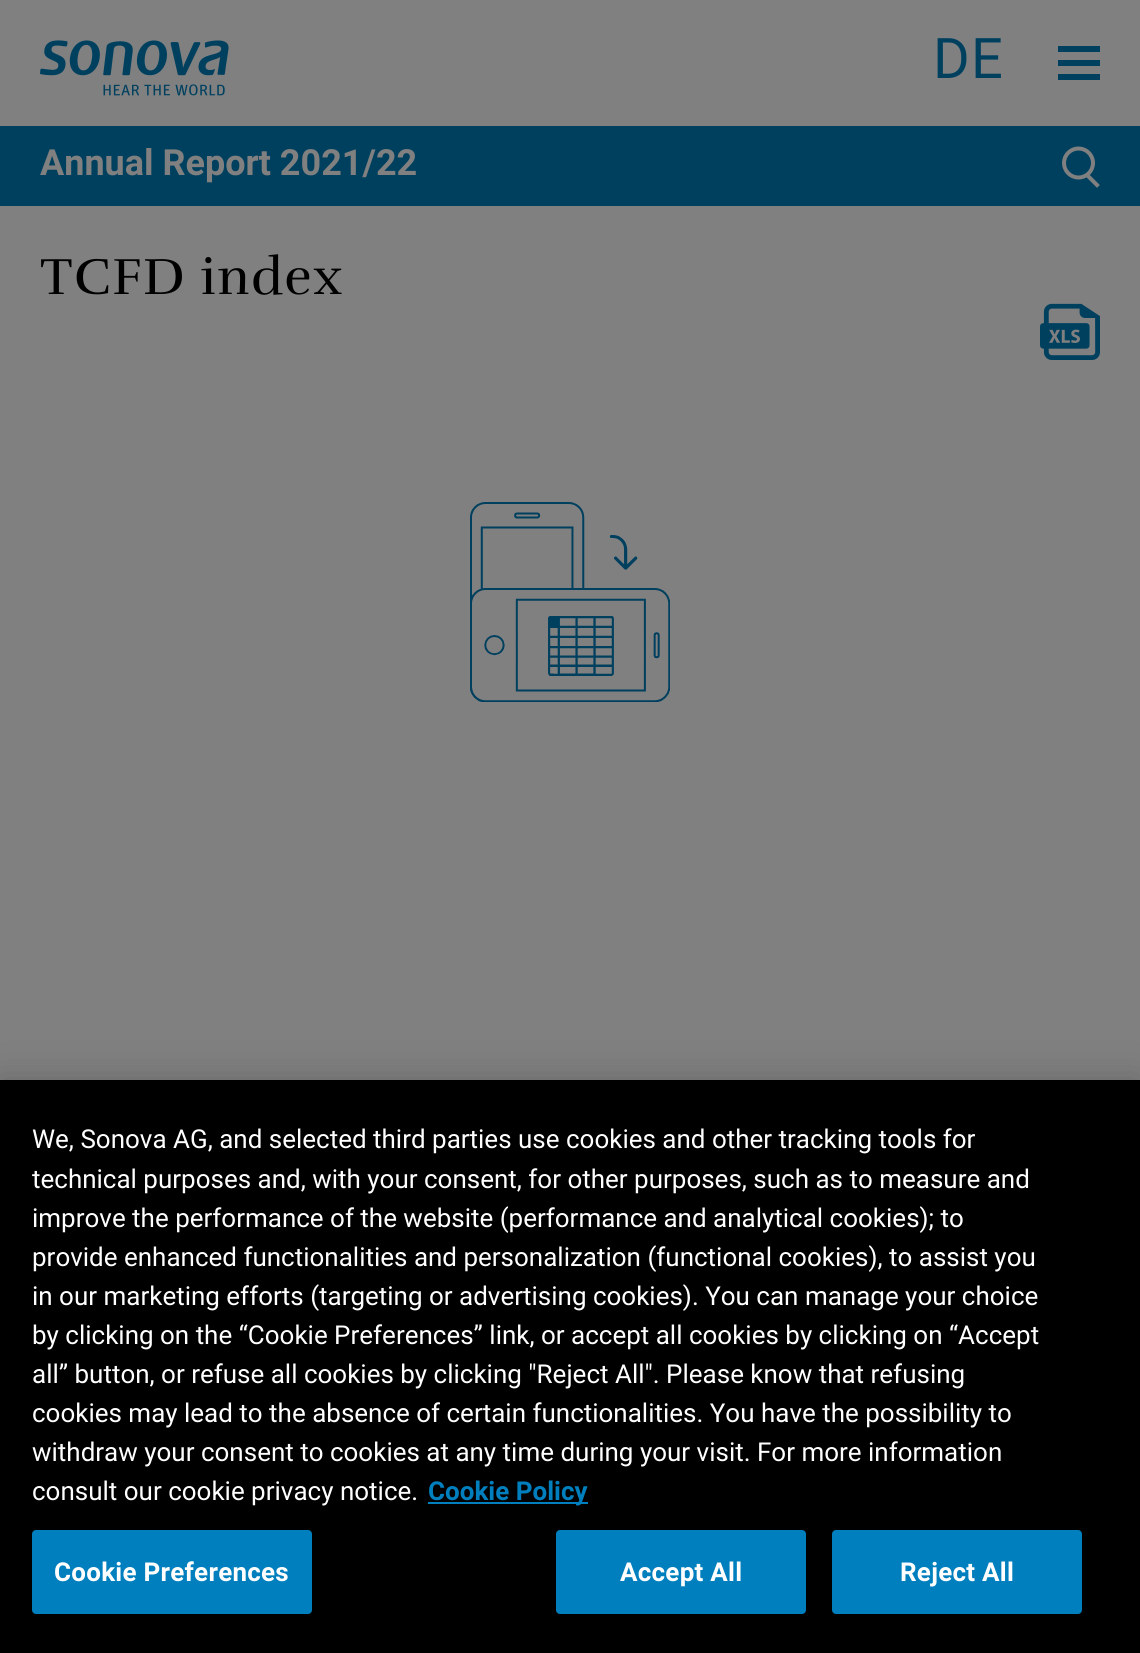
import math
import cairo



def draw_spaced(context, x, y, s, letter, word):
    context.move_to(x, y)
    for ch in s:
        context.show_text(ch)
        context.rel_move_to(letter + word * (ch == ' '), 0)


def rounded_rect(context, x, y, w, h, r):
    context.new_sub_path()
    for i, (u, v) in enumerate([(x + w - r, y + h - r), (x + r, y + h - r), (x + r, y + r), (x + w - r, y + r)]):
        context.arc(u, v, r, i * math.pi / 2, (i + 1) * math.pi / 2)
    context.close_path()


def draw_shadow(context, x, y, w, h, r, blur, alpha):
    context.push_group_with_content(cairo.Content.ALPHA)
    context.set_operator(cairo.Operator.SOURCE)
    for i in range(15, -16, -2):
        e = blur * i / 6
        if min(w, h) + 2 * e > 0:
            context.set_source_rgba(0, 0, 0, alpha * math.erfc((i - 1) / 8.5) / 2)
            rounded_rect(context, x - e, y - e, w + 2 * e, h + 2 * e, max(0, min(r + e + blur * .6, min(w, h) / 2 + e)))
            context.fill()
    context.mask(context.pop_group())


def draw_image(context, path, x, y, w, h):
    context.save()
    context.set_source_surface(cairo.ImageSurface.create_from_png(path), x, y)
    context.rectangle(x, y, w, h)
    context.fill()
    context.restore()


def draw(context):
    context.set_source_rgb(128 / 255, 128 / 255, 128 / 255)
    context.paint()
    draw_image(context, "images/1.png", 40, 40, 189, 56)
    context.set_source_rgb(0, 64 / 255, 95 / 255)
    context.rectangle(0, 126, 1140, 80)
    context.fill()
    context.arc(1078.5, 163, 14.5, 0, 2 * math.pi)
    context.set_source_rgb(128 / 255, 128 / 255, 128 / 255)
    context.set_line_width(4)
    context.stroke()
    context.new_path()
    context.move_to(1087.5, 175.5)
    context.line_to(1097, 185)
    context.set_line_cap(cairo.LineCap.SQUARE)
    context.stroke()
    context.set_source_rgb(0, 64 / 255, 95 / 255)
    context.rectangle(1058, 60, 42, 6)
    context.fill()
    context.rectangle(1058, 46, 42, 6)
    context.fill()
    context.rectangle(1058, 74, 42, 6)
    context.fill()
    draw_image(context, "images/2.png", 1040, 303, 60, 57)
    draw_image(context, "images/3.png", 470, 502, 200, 200)
    context.set_source_rgb(0, 0, 0)
    draw_shadow(context, 0, 1080, 1140, 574, 0, 18, 0.2)
    context.set_source_rgb(0, 0, 0)
    context.rectangle(0, 1080, 1140, 573)
    context.fill()
    context.set_source_rgb(0, 127 / 255, 190 / 255)
    context.rectangle(428, 1502, 160, 2)
    context.fill()
    rounded_rect(context, 33, 1531, 278, 82, 3)
    context.fill_preserve()
    context.set_line_width(2)
    context.set_line_cap(cairo.LineCap.BUTT)
    context.stroke()
    rounded_rect(context, 557, 1531, 248, 82, 3)
    context.fill_preserve()
    context.stroke()
    rounded_rect(context, 833, 1531, 248, 82, 3)
    context.fill_preserve()
    context.stroke()
    context.select_font_face("Roboto")
    context.set_font_size(56)
    context.set_source_rgb(0, 64 / 255, 95 / 255)
    draw_spaced(context, 933, 78, "DE", 1.4, 0)
    context.select_font_face("Roboto", cairo.FontSlant.NORMAL, cairo.FontWeight.BOLD)
    context.set_font_size(36)
    context.set_source_rgb(128 / 255, 128 / 255, 128 / 255)
    context.move_to(40, 175)
    context.show_text("Annual Report 2021/22")
    context.select_font_face("Rufina")
    context.set_font_size(52)
    context.set_source_rgb(0, 0, 0)
    draw_spaced(context, 40, 294, "TCFD index", 1.4, 0)
    context.select_font_face("Roboto")
    context.set_font_size(26)
    context.set_source_rgb(1, 1, 1)
    context.move_to(32, 1148)
    context.show_text("We, Sonova AG, and selected third parties use cookies and other tracking tools for")
    context.move_to(32, 1188)
    context.show_text("technical purposes and, with your consent, for other purposes, such as to measure and")
    context.move_to(32, 1227)
    context.show_text("improve the performance of the website (performance and analytical cookies); to")
    context.move_to(32, 1266)
    context.show_text("provide enhanced functionalities and personalization (functional cookies), to assist you")
    context.move_to(32, 1305)
    context.show_text("in our marketing efforts (targeting or advertising cookies). You can manage your choice")
    context.move_to(32, 1344)
    context.show_text("by clicking on the “Cookie Preferences” link, or accept all cookies by clicking on “Accept")
    context.move_to(32, 1383)
    context.show_text("all” button, or refuse all cookies by clicking \"Reject All\". Please know that refusing")
    context.move_to(32, 1422)
    context.show_text("cookies may lead to the absence of certain functionalities. You have the possibility to")
    context.move_to(32, 1461)
    context.show_text("withdraw your consent to cookies at any time during your visit. For more information")
    context.move_to(32, 1500)
    context.show_text("consult our cookie privacy notice.")
    context.select_font_face("Roboto", cairo.FontSlant.NORMAL, cairo.FontWeight.BOLD)
    context.set_source_rgb(0, 127 / 255, 190 / 255)
    context.move_to(428, 1500)
    context.show_text("Cookie Policy")
    context.set_source_rgb(1, 1, 1)
    draw_spaced(context, 54, 1581, "Cookie Preferences", 0.25, 0)
    draw_spaced(context, 620, 1581, "Accept All", 0.25, 0)
    draw_spaced(context, 900, 1581, "Reject All", 0.25, 0)


surface = cairo.ImageSurface(cairo.Format.RGB24, 1140, 1653)
context = cairo.Context(surface)
options = cairo.FontOptions()
options.set_hint_metrics(cairo.HintMetrics.OFF)
options.set_hint_style(cairo.HintStyle.NONE)
context.set_font_options(options)
context.set_miter_limit(4)
draw(context)
surface.write_to_png("out.png")
